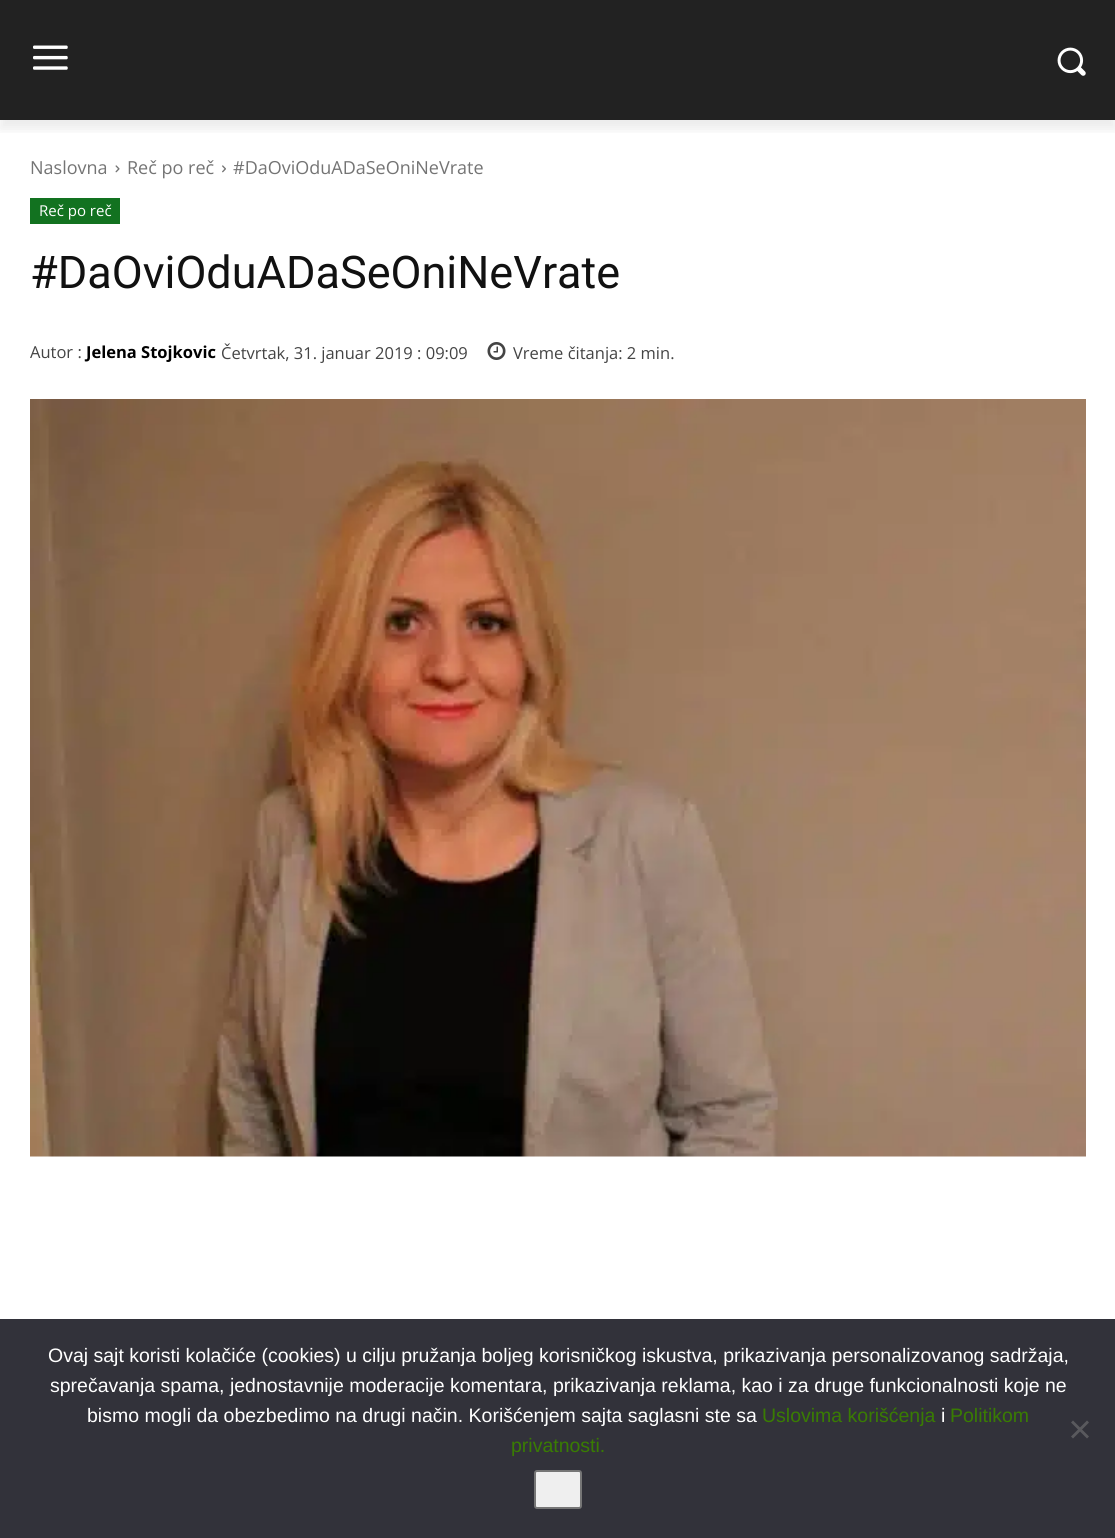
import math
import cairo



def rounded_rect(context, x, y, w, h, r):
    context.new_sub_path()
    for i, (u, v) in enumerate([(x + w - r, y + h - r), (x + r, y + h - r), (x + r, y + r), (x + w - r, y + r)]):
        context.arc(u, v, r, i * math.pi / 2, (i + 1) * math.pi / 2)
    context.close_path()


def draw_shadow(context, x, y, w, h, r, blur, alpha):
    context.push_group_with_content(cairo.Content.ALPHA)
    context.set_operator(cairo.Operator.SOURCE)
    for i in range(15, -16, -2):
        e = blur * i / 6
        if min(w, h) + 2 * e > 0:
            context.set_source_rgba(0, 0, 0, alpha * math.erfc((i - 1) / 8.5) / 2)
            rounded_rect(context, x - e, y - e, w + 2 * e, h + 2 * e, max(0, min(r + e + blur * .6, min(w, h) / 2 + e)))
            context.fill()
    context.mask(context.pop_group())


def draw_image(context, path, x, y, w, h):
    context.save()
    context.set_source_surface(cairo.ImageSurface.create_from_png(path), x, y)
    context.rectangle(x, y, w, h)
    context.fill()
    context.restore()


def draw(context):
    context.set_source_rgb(1, 1, 1)
    context.paint()
    context.set_source_rgb(34 / 255, 34 / 255, 34 / 255)
    context.rectangle(0, 0, 1115, 120)
    context.fill()
    draw_image(context, "images/1.png", 33, 45, 35, 25)
    draw_image(context, "images/2.png", 1057, 47, 29, 29)
    context.save()
    context.rectangle(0, 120, 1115, 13)
    context.clip()
    context.set_source_rgb(0, 0, 0)
    draw_shadow(context, 0, 9, 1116, 120, 0, 6, 0.08)
    context.restore()
    draw_image(context, "images/3.png", 115, 165, 5, 8)
    draw_image(context, "images/4.png", 222, 165, 4, 8)
    context.set_source_rgb(18 / 255, 114 / 255, 32 / 255)
    context.rectangle(30, 198, 90, 26)
    context.fill()
    draw_image(context, "images/5.png", 487, 342, 19, 18)
    draw_image(context, "images/6.png", 30, 399, 1056, 758)
    context.set_source_rgb(50 / 255, 50 / 255, 58 / 255)
    context.rectangle(0, 1319, 1115, 219)
    context.fill()
    context.set_source_rgb(89 / 255, 89 / 255, 93 / 255)
    context.new_path()
    context.move_to(1087, 1420.5)
    context.line_to(1089, 1422.5)
    context.line_to(1073, 1438.5)
    context.line_to(1071, 1436.5)
    context.close_path()
    context.fill()
    context.new_path()
    context.move_to(1071, 1422.5)
    context.line_to(1073, 1420.5)
    context.line_to(1089, 1436.5)
    context.line_to(1087, 1438.5)
    context.close_path()
    context.fill()
    context.set_source_rgb(239 / 255, 239 / 255, 239 / 255)
    rounded_rect(context, 535, 1471, 46, 37, 2)
    context.fill_preserve()
    context.set_source_rgb(118 / 255, 118 / 255, 118 / 255)
    context.stroke()
    context.select_font_face("Open Sans")
    context.set_font_size(18)
    context.set_source_rgb(116 / 255, 116 / 255, 116 / 255)
    context.move_to(30, 174)
    context.show_text("Naslovna")
    context.move_to(127, 174)
    context.show_text("Reč po reč")
    context.move_to(233, 174)
    context.show_text("#DaOviOduADaSeOniNeVrate")
    context.set_font_size(15)
    context.set_source_rgb(1, 1, 1)
    context.move_to(39, 216)
    context.show_text("Reč po reč")
    context.select_font_face("Roboto")
    context.set_font_size(45)
    context.set_source_rgb(17 / 255, 17 / 255, 17 / 255)
    context.move_to(30, 288)
    context.show_text("#DaOviOduADaSeOniNeVrate")
    context.select_font_face("Open Sans")
    context.set_font_size(16.5)
    context.set_source_rgb(68 / 255, 68 / 255, 68 / 255)
    context.move_to(30, 358)
    context.show_text("Autor :")
    context.select_font_face("Open Sans", cairo.FontSlant.NORMAL, cairo.FontWeight.BOLD)
    context.set_source_rgb(0, 0, 0)
    context.move_to(86, 358)
    context.show_text("Jelena Stojkovic")
    context.select_font_face("Open Sans")
    context.set_source_rgb(68 / 255, 68 / 255, 68 / 255)
    context.move_to(221, 359)
    context.show_text("Četvrtak, 31. januar 2019 : 09:09")
    context.move_to(513, 359)
    context.show_text("Vreme čitanja: 2 min.")
    context.select_font_face("Liberation Sans")
    context.set_font_size(19.5)
    context.set_source_rgb(1, 1, 1)
    context.move_to(48, 1362)
    context.show_text("Ovaj sajt koristi kolačiće (cookies) u cilju pružanja boljeg korisničkog iskustva, prikazivanja personalizovanog sadržaja,")
    context.move_to(50, 1392)
    context.show_text("sprečavanja spama, jednostavnije moderacije komentara, prikazivanja reklama, kao i za druge funkcionalnosti koje ne")
    context.move_to(87, 1422)
    context.show_text("bismo mogli da obezbedimo na drugi način. Korišćenjem sajta saglasni ste sa")
    context.set_source_rgb(57 / 255, 124 / 255, 2 / 255)
    context.move_to(762, 1422)
    context.show_text("Uslovima korišćenja")
    context.set_source_rgb(1, 1, 1)
    context.move_to(941, 1422)
    context.show_text("i")
    context.set_source_rgb(57 / 255, 124 / 255, 2 / 255)
    context.move_to(950, 1422)
    context.show_text("Politikom")
    context.move_to(511, 1452)
    context.show_text("privatnosti.")


surface = cairo.ImageSurface(cairo.Format.RGB24, 1115, 1538)
context = cairo.Context(surface)
options = cairo.FontOptions()
options.set_hint_metrics(cairo.HintMetrics.OFF)
options.set_hint_style(cairo.HintStyle.NONE)
context.set_font_options(options)
context.set_miter_limit(4)
draw(context)
surface.write_to_png("out.png")
